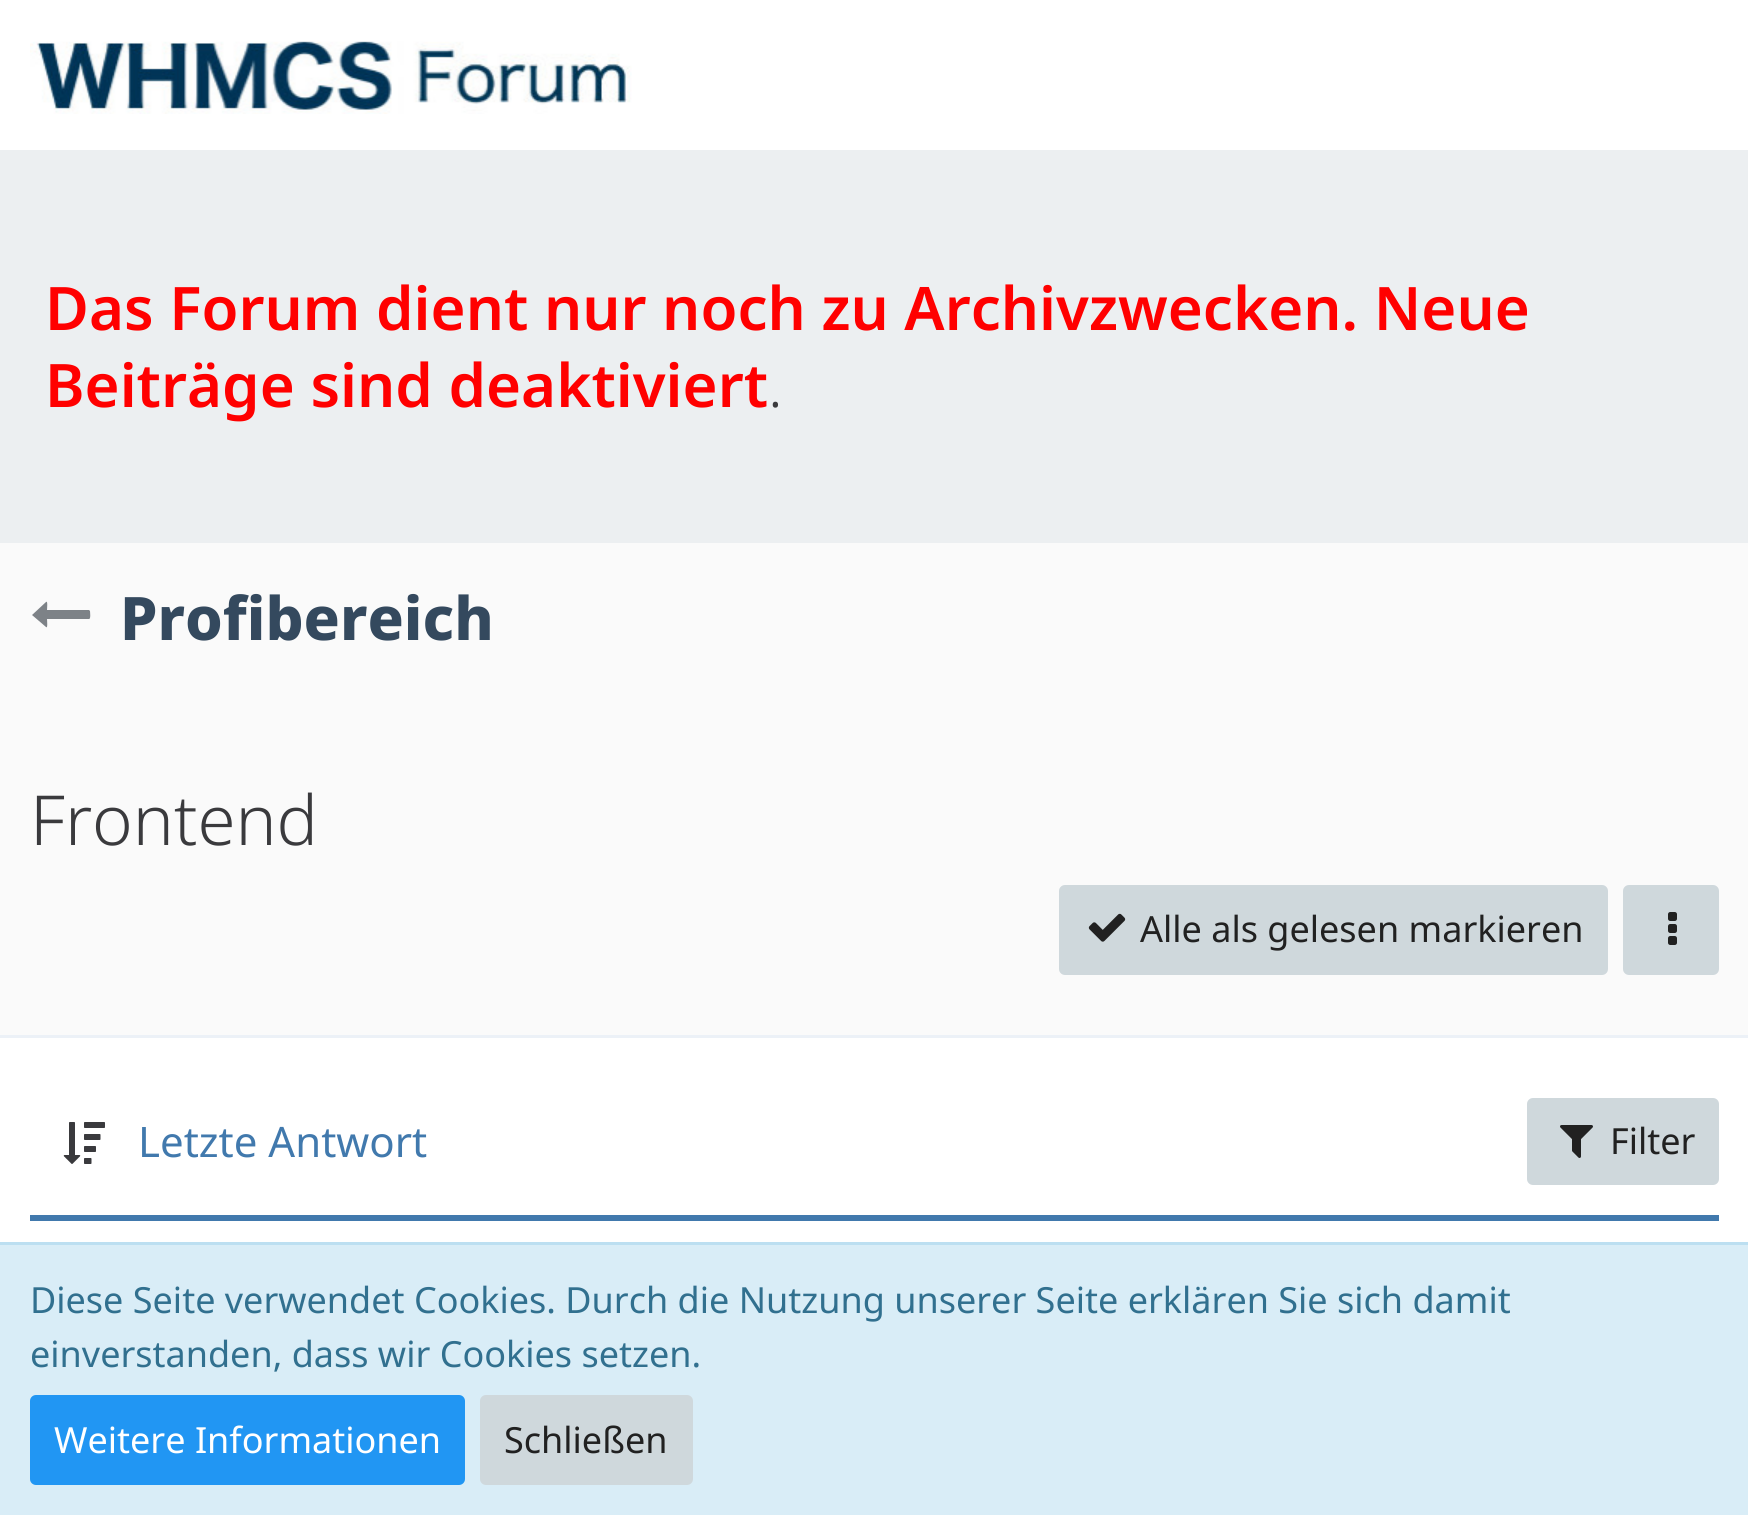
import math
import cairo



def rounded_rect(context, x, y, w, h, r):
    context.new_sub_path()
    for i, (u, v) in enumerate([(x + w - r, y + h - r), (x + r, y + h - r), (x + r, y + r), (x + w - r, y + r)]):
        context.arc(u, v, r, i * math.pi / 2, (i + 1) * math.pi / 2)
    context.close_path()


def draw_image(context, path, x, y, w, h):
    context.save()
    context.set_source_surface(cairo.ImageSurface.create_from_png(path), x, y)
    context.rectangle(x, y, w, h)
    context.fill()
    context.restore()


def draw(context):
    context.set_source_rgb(250 / 255, 250 / 255, 250 / 255)
    context.paint()
    context.set_source_rgb(1, 1, 1)
    context.rectangle(0, 0, 1748, 150)
    context.fill()
    draw_image(context, "images/1.png", 30, 41, 602, 73)
    context.set_source_rgb(236 / 255, 239 / 255, 241 / 255)
    context.rectangle(0, 150, 1748, 393)
    context.fill()
    context.set_source_rgb(125 / 255, 130 / 255, 135 / 255)
    context.new_path()
    context.move_to(90, 611)
    context.curve_to(90, 612, 91, 619, 89, 619)
    context.line_to(47, 619)
    context.curve_to(47, 620, 48, 629, 46, 627)
    context.line_to(32, 615)
    context.line_to(46, 602)
    context.curve_to(48, 600, 47, 609, 47, 610)
    context.line_to(89, 610)
    context.close_path()
    context.fill()
    context.set_source_rgb(207 / 255, 216 / 255, 220 / 255)
    rounded_rect(context, 1059, 885, 549, 90, 6)
    context.fill()
    draw_image(context, "images/2.png", 1088, 913, 38, 29)
    rounded_rect(context, 1623, 885, 96, 90, 6)
    context.fill()
    draw_image(context, "images/3.png", 1668, 912, 9, 33)
    context.set_source_rgb(1, 1, 1)
    context.rectangle(0, 1038, 1748, 204)
    context.fill()
    context.set_source_rgb(236 / 255, 241 / 255, 247 / 255)
    context.rectangle(0, 1035, 1748, 3)
    context.fill()
    context.set_source_rgb(65 / 255, 121 / 255, 173 / 255)
    context.rectangle(30, 1215, 1689, 6)
    context.fill()
    draw_image(context, "images/4.png", 63, 1122, 42, 42)
    context.set_source_rgb(207 / 255, 216 / 255, 220 / 255)
    rounded_rect(context, 1527, 1098, 192, 87, 6)
    context.fill()
    draw_image(context, "images/5.png", 1560, 1125, 33, 33)
    context.set_source_rgb(217 / 255, 237 / 255, 247 / 255)
    context.rectangle(0, 1245, 1748, 270)
    context.fill()
    context.set_source_rgb(188 / 255, 223 / 255, 241 / 255)
    context.rectangle(0, 1242, 1748, 3)
    context.fill()
    context.set_source_rgb(33 / 255, 150 / 255, 243 / 255)
    rounded_rect(context, 30, 1395, 435, 90, 6)
    context.fill()
    context.set_source_rgb(207 / 255, 216 / 255, 220 / 255)
    rounded_rect(context, 480, 1395, 213, 90, 6)
    context.fill()
    context.select_font_face("Noto Sans SemiBold")
    context.set_font_size(60)
    context.set_source_rgb(1, 0, 0)
    context.move_to(45, 330)
    context.show_text("Das Forum dient nur noch zu Archivzwecken. Neue")
    context.move_to(45, 407)
    context.show_text("Beiträge sind deaktiviert")
    context.select_font_face("Noto Sans Light")
    context.set_source_rgb(58 / 255, 58 / 255, 61 / 255)
    context.move_to(768, 407)
    context.show_text(".")
    context.select_font_face("Noto Sans ExtraBold")
    context.set_source_rgb(52 / 255, 73 / 255, 94 / 255)
    context.move_to(120, 640)
    context.show_text("Profibereich")
    context.select_font_face("Noto Sans Light")
    context.set_font_size(69)
    context.set_source_rgb(58 / 255, 58 / 255, 61 / 255)
    context.move_to(30, 845)
    context.show_text("Frontend")
    context.select_font_face("Noto Sans")
    context.set_font_size(36)
    context.set_source_rgb(33 / 255, 33 / 255, 33 / 255)
    context.move_to(1140, 942)
    context.show_text("Alle als gelesen markieren")
    context.set_font_size(42)
    context.set_source_rgb(65 / 255, 121 / 255, 173 / 255)
    context.move_to(138, 1157)
    context.show_text("Letzte Antwort")
    context.set_font_size(36)
    context.set_source_rgb(33 / 255, 33 / 255, 33 / 255)
    context.move_to(1610, 1154)
    context.show_text("Filter")
    context.set_source_rgb(49 / 255, 112 / 255, 143 / 255)
    context.move_to(30, 1313)
    context.show_text("Diese Seite verwendet Cookies. Durch die Nutzung unserer Seite erklären Sie sich damit")
    context.move_to(30, 1367)
    context.show_text("einverstanden, dass wir Cookies setzen.")
    context.set_source_rgb(1, 1, 1)
    context.move_to(54, 1453)
    context.show_text("Weitere Informationen")
    context.set_source_rgb(33 / 255, 33 / 255, 33 / 255)
    context.move_to(504, 1453)
    context.show_text("Schließen")


surface = cairo.ImageSurface(cairo.Format.RGB24, 1748, 1515)
context = cairo.Context(surface)
options = cairo.FontOptions()
options.set_hint_metrics(cairo.HintMetrics.OFF)
options.set_hint_style(cairo.HintStyle.NONE)
context.set_font_options(options)
context.set_miter_limit(4)
draw(context)
surface.write_to_png("out.png")
